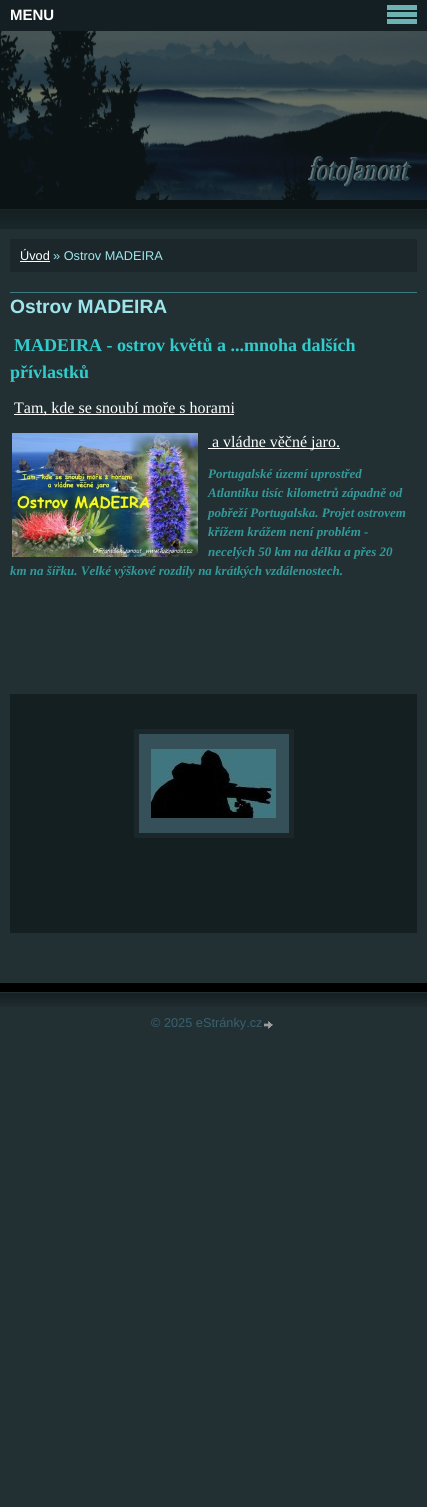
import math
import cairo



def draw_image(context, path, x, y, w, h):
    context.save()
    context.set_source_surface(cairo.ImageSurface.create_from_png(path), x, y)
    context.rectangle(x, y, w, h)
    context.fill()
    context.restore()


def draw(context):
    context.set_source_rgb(34 / 255, 48 / 255, 52 / 255)
    context.paint()
    context.set_source_rgb(19 / 255, 31 / 255, 34 / 255)
    context.rectangle(0, 0, 427, 31)
    context.fill()
    context.set_source_rgb(109 / 255, 178 / 255, 179 / 255)
    context.rectangle(387, 5, 30, 5)
    context.fill()
    context.rectangle(387, 12, 30, 5)
    context.fill()
    context.rectangle(387, 19, 30, 5)
    context.fill()
    context.set_source_rgb(20 / 255, 31 / 255, 34 / 255)
    context.rectangle(10, 694, 407, 239)
    context.fill()
    context.set_source_rgb(53 / 255, 80 / 255, 88 / 255)
    context.rectangle(136.5, 731.5, 155, 104)
    context.fill_preserve()
    context.set_source_rgb(27 / 255, 39 / 255, 42 / 255)
    context.set_line_width(5)
    context.stroke()
    draw_image(context, "images/1.png", 151, 749, 125, 69)
    context.rectangle(10, 239, 407, 33)
    context.fill()
    context.set_source_rgb(1, 1, 1)
    context.rectangle(20, 261, 30, 1)
    context.fill()
    context.set_source_rgb(57 / 255, 123 / 255, 129 / 255)
    context.rectangle(10, 292, 407, 1)
    context.fill()
    context.set_source_rgb(1, 1, 1)
    context.rectangle(14, 414, 220, 1)
    context.fill()
    draw_image(context, "images/2.png", 12, 433, 186, 124)
    context.rectangle(208, 448, 132, 1)
    context.fill()
    draw_image(context, "images/3.png", 0, 200, 427, 24)
    draw_image(context, "images/4.png", 0, 31, 427, 169)
    context.set_source_rgba(19 / 255, 32 / 255, 34 / 255, 0.6)
    context.rectangle(0, 31, 427, 198)
    context.fill()
    draw_image(context, "images/3.png", 0, 983, 427, 24)
    draw_image(context, "images/5.png", 264, 1021, 9, 8)
    context.select_font_face("Liberation Sans", cairo.FontSlant.NORMAL, cairo.FontWeight.BOLD)
    context.set_font_size(15)
    context.set_source_rgb(1, 1, 1)
    context.move_to(10, 20)
    context.show_text("MENU")
    context.select_font_face("Liberation Sans")
    context.set_font_size(12.75)
    context.move_to(20, 260)
    context.show_text("Úvod")
    context.set_source_rgb(158 / 255, 229 / 255, 235 / 255)
    context.move_to(53, 260)
    context.show_text("» Ostrov MADEIRA")
    context.select_font_face("Liberation Sans", cairo.FontSlant.NORMAL, cairo.FontWeight.BOLD)
    context.set_font_size(19.25)
    context.move_to(10, 313)
    context.show_text("Ostrov MADEIRA")
    context.select_font_face("Liberation Serif", cairo.FontSlant.NORMAL, cairo.FontWeight.BOLD)
    context.set_font_size(18)
    context.set_source_rgb(51 / 255, 204 / 255, 204 / 255)
    context.move_to(14, 351)
    context.show_text("MADEIRA - ostrov květů a ...mnoha dalších")
    context.move_to(10, 378)
    context.show_text("přívlastků")
    context.select_font_face("Liberation Serif")
    context.set_font_size(16)
    context.set_source_rgb(1, 1, 1)
    context.move_to(14, 413)
    context.show_text("Tam, kde se snoubí moře s horami")
    context.move_to(212, 447)
    context.show_text("a vládne věčné jaro.")
    context.select_font_face("Liberation Serif", cairo.FontSlant.ITALIC, cairo.FontWeight.BOLD)
    context.set_font_size(13)
    context.set_source_rgb(51 / 255, 153 / 255, 153 / 255)
    context.move_to(208, 478)
    context.show_text("Portugalské území uprostřed")
    context.move_to(208, 497)
    context.show_text("Atlantiku tisíc kilometrů západně od")
    context.move_to(208, 517)
    context.show_text("pobřeží Portugalska. Projet ostrovem")
    context.move_to(208, 536)
    context.show_text("křížem krážem není problém -")
    context.move_to(208, 556)
    context.show_text("necelých 50 km na délku a přes 20")
    context.move_to(10, 575)
    context.show_text("km na šířku. Velké výškové rozdíly na krátkých vzdálenostech.")
    context.select_font_face("Liberation Sans")
    context.set_font_size(12.75)
    context.set_source_rgb(56 / 255, 97 / 255, 109 / 255)
    context.move_to(151, 1027)
    context.show_text("© 2025 eStránky.cz")


surface = cairo.ImageSurface(cairo.Format.RGB24, 427, 1507)
context = cairo.Context(surface)
options = cairo.FontOptions()
options.set_hint_metrics(cairo.HintMetrics.OFF)
options.set_hint_style(cairo.HintStyle.NONE)
context.set_font_options(options)
context.set_miter_limit(4)
draw(context)
surface.write_to_png("out.png")
